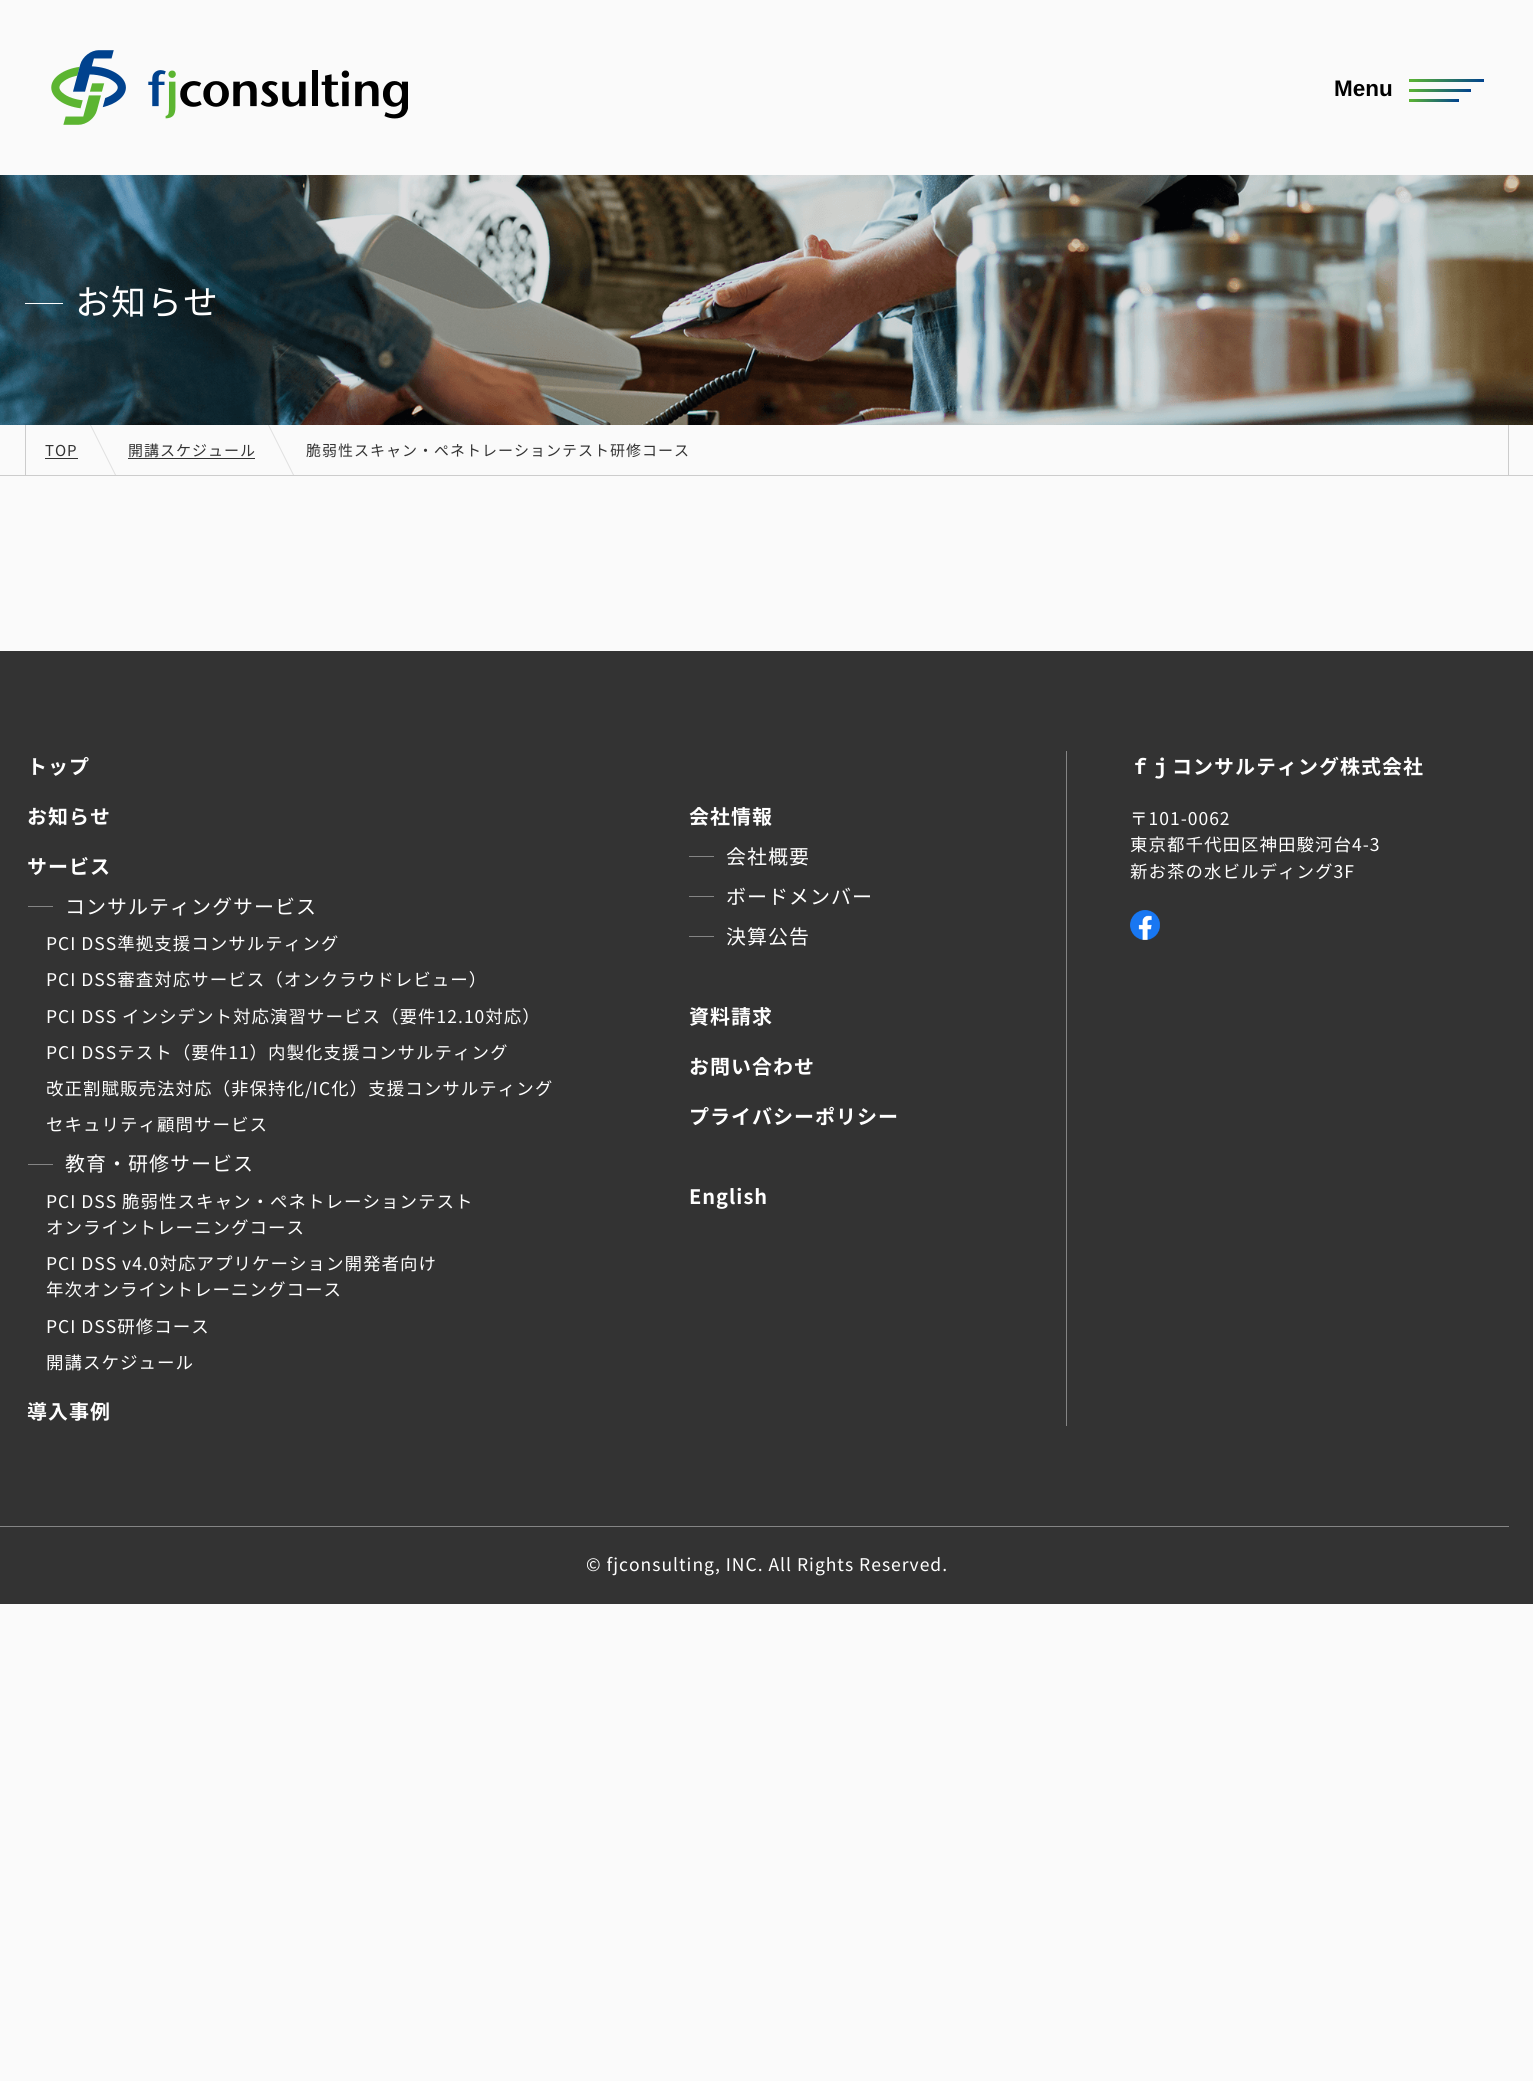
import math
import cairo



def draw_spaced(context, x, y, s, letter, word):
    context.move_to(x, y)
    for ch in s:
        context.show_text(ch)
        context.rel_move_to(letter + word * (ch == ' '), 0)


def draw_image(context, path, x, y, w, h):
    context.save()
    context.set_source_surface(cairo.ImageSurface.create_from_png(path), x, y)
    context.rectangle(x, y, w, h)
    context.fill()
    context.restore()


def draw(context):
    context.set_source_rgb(250 / 255, 250 / 255, 250 / 255)
    context.paint()
    draw_image(context, "images/1.png", 51, 50, 357, 75)
    gradient = cairo.LinearGradient(1409, 90, 1471, 90)
    gradient.add_color_stop_rgba(0, 92 / 255, 181 / 255, 49 / 255, 1)
    gradient.add_color_stop_rgba(1, 0, 66 / 255, 142 / 255, 1)
    context.set_source(gradient)
    context.rectangle(1409, 89, 62, 3)
    context.fill()
    gradient = cairo.LinearGradient(1409, 80, 1484, 80)
    gradient.add_color_stop_rgba(0, 92 / 255, 181 / 255, 49 / 255, 1)
    gradient.add_color_stop_rgba(1, 0, 66 / 255, 142 / 255, 1)
    context.set_source(gradient)
    context.rectangle(1409, 79, 75, 3)
    context.fill()
    gradient = cairo.LinearGradient(1409, 100, 1459, 100)
    gradient.add_color_stop_rgba(0, 92 / 255, 181 / 255, 49 / 255, 1)
    gradient.add_color_stop_rgba(1, 0, 66 / 255, 142 / 255, 1)
    context.set_source(gradient)
    context.rectangle(1409, 99, 50, 3)
    context.fill()
    draw_image(context, "images/2.png", 0, 175, 1533, 250)
    context.set_source_rgb(1, 1, 1)
    context.rectangle(25, 303, 38, 1)
    context.fill()
    context.set_source_rgb(204 / 255, 204 / 255, 204 / 255)
    context.rectangle(0, 475, 1533, 1)
    context.fill()
    context.rectangle(1508, 425, 1, 50)
    context.fill()
    context.rectangle(25, 425, 1, 50)
    context.fill()
    context.set_source_rgb(51 / 255, 51 / 255, 51 / 255)
    context.rectangle(45, 458, 33, 1)
    context.fill()
    context.set_source_rgb(221 / 255, 221 / 255, 221 / 255)
    context.new_path()
    context.move_to(90, 425)
    context.line_to(91, 425)
    context.line_to(116, 475)
    context.line_to(115, 475)
    context.close_path()
    context.fill()
    context.set_source_rgb(51 / 255, 51 / 255, 51 / 255)
    context.rectangle(128, 458, 127, 1)
    context.fill()
    context.set_source_rgb(221 / 255, 221 / 255, 221 / 255)
    context.new_path()
    context.move_to(268, 425)
    context.line_to(269, 425)
    context.line_to(294, 475)
    context.line_to(293, 475)
    context.close_path()
    context.fill()
    context.set_source_rgb(51 / 255, 51 / 255, 51 / 255)
    context.rectangle(0, 651, 1533, 953)
    context.fill()
    context.set_source_rgb(133 / 255, 133 / 255, 133 / 255)
    context.rectangle(0, 1526, 1509, 1)
    context.fill()
    context.rectangle(28, 906, 25, 1)
    context.fill()
    context.rectangle(28, 1164, 25, 1)
    context.fill()
    context.rectangle(1066, 751, 1, 675)
    context.fill()
    context.rectangle(689, 856, 25, 1)
    context.fill()
    context.rectangle(689, 896, 25, 1)
    context.fill()
    context.rectangle(689, 936, 25, 1)
    context.fill()
    draw_image(context, "images/3.png", 1130, 910, 30, 30)
    context.select_font_face("Liberation Sans", cairo.FontSlant.NORMAL, cairo.FontWeight.BOLD)
    context.set_font_size(22.5)
    context.set_source_rgb(0, 0, 0)
    context.move_to(1334, 96)
    context.show_text("Menu")
    context.select_font_face("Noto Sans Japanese")
    context.set_font_size(35)
    context.set_source_rgb(1, 1, 1)
    draw_spaced(context, 75, 315, "お知らせ", 1, 0)
    context.set_font_size(15)
    context.set_source_rgb(51 / 255, 51 / 255, 51 / 255)
    draw_spaced(context, 45, 456, "TOP", 1, 0)
    draw_spaced(context, 128, 456, "開講スケジュール", 1, 0)
    draw_spaced(context, 306, 456, "脆弱性スキャン・ペネトレーションテスト研修コース", 1, 0)
    context.select_font_face("Noto Sans Japanese", cairo.FontSlant.NORMAL, cairo.FontWeight.BOLD)
    context.set_font_size(20)
    context.set_source_rgb(1, 1, 1)
    draw_spaced(context, 27, 774, "トップ", 1, 0)
    draw_spaced(context, 27, 824, "お知らせ", 1, 0)
    draw_spaced(context, 27, 874, "サービス", 1, 0)
    context.select_font_face("Noto Sans Japanese")
    draw_spaced(context, 65, 914, "コンサルティングサービス", 1, 0)
    context.set_font_size(17.5)
    draw_spaced(context, 46, 950, "PCI DSS準拠支援コンサルティング", 1, 0)
    draw_spaced(context, 46, 986, "PCI DSS審査対応サービス（オンクラウドレビュー）", 1, 0)
    draw_spaced(context, 46, 1023, "PCI DSS インシデント対応演習サービス（要件12.10対応）", 1, 0)
    draw_spaced(context, 46, 1059, "PCI DSSテスト（要件11）内製化支援コンサルティング", 1, 0)
    draw_spaced(context, 46, 1095, "改正割賦販売法対応（非保持化/IC化）支援コンサルティング", 1, 0)
    draw_spaced(context, 46, 1131, "セキュリティ顧問サービス", 1, 0)
    context.set_font_size(20)
    draw_spaced(context, 65, 1171, "教育・研修サービス", 1, 0)
    context.set_font_size(17.5)
    draw_spaced(context, 46, 1208, "PCI DSS 脆弱性スキャン・ペネトレーションテスト", 1, 0)
    draw_spaced(context, 46, 1234, "オンライントレーニングコース", 1, 0)
    draw_spaced(context, 46, 1270, "PCI DSS v4.0対応アプリケーション開発者向け", 1, 0)
    draw_spaced(context, 46, 1296, "年次オンライントレーニングコース", 1, 0)
    draw_spaced(context, 46, 1333, "PCI DSS研修コース", 1, 0)
    draw_spaced(context, 46, 1369, "開講スケジュール", 1, 0)
    context.select_font_face("Noto Sans Japanese", cairo.FontSlant.NORMAL, cairo.FontWeight.BOLD)
    context.set_font_size(20)
    draw_spaced(context, 27, 1419, "導入事例", 1, 0)
    draw_spaced(context, 689, 824, "会社情報", 1, 0)
    context.select_font_face("Noto Sans Japanese")
    draw_spaced(context, 726, 864, "会社概要", 1, 0)
    draw_spaced(context, 726, 904, "ボードメンバー", 1, 0)
    draw_spaced(context, 726, 944, "決算公告", 1, 0)
    context.select_font_face("Noto Sans Japanese", cairo.FontSlant.NORMAL, cairo.FontWeight.BOLD)
    draw_spaced(context, 689, 1024, "資料請求", 1, 0)
    draw_spaced(context, 689, 1074, "お問い合わせ", 1, 0)
    draw_spaced(context, 689, 1124, "プライバシーポリシー", 1, 0)
    draw_spaced(context, 689, 1204, "English", 1, 0)
    draw_spaced(context, 1130, 774, "ｆｊコンサルティング株式会社", 1, 0)
    context.select_font_face("Noto Sans Japanese")
    context.set_font_size(17.5)
    draw_spaced(context, 1130, 825, "〒101-0062", 1, 0)
    draw_spaced(context, 1130, 851, "東京都千代田区神田駿河台4-3", 1, 0)
    draw_spaced(context, 1130, 878, "新お茶の水ビルディング3F", 1, 0)
    draw_spaced(context, 586, 1571, "© fjconsulting, INC. All Rights Reserved.", 1, 0)


surface = cairo.ImageSurface(cairo.Format.RGB24, 1533, 2081)
context = cairo.Context(surface)
options = cairo.FontOptions()
options.set_hint_metrics(cairo.HintMetrics.OFF)
options.set_hint_style(cairo.HintStyle.NONE)
context.set_font_options(options)
context.set_miter_limit(4)
draw(context)
surface.write_to_png("out.png")
